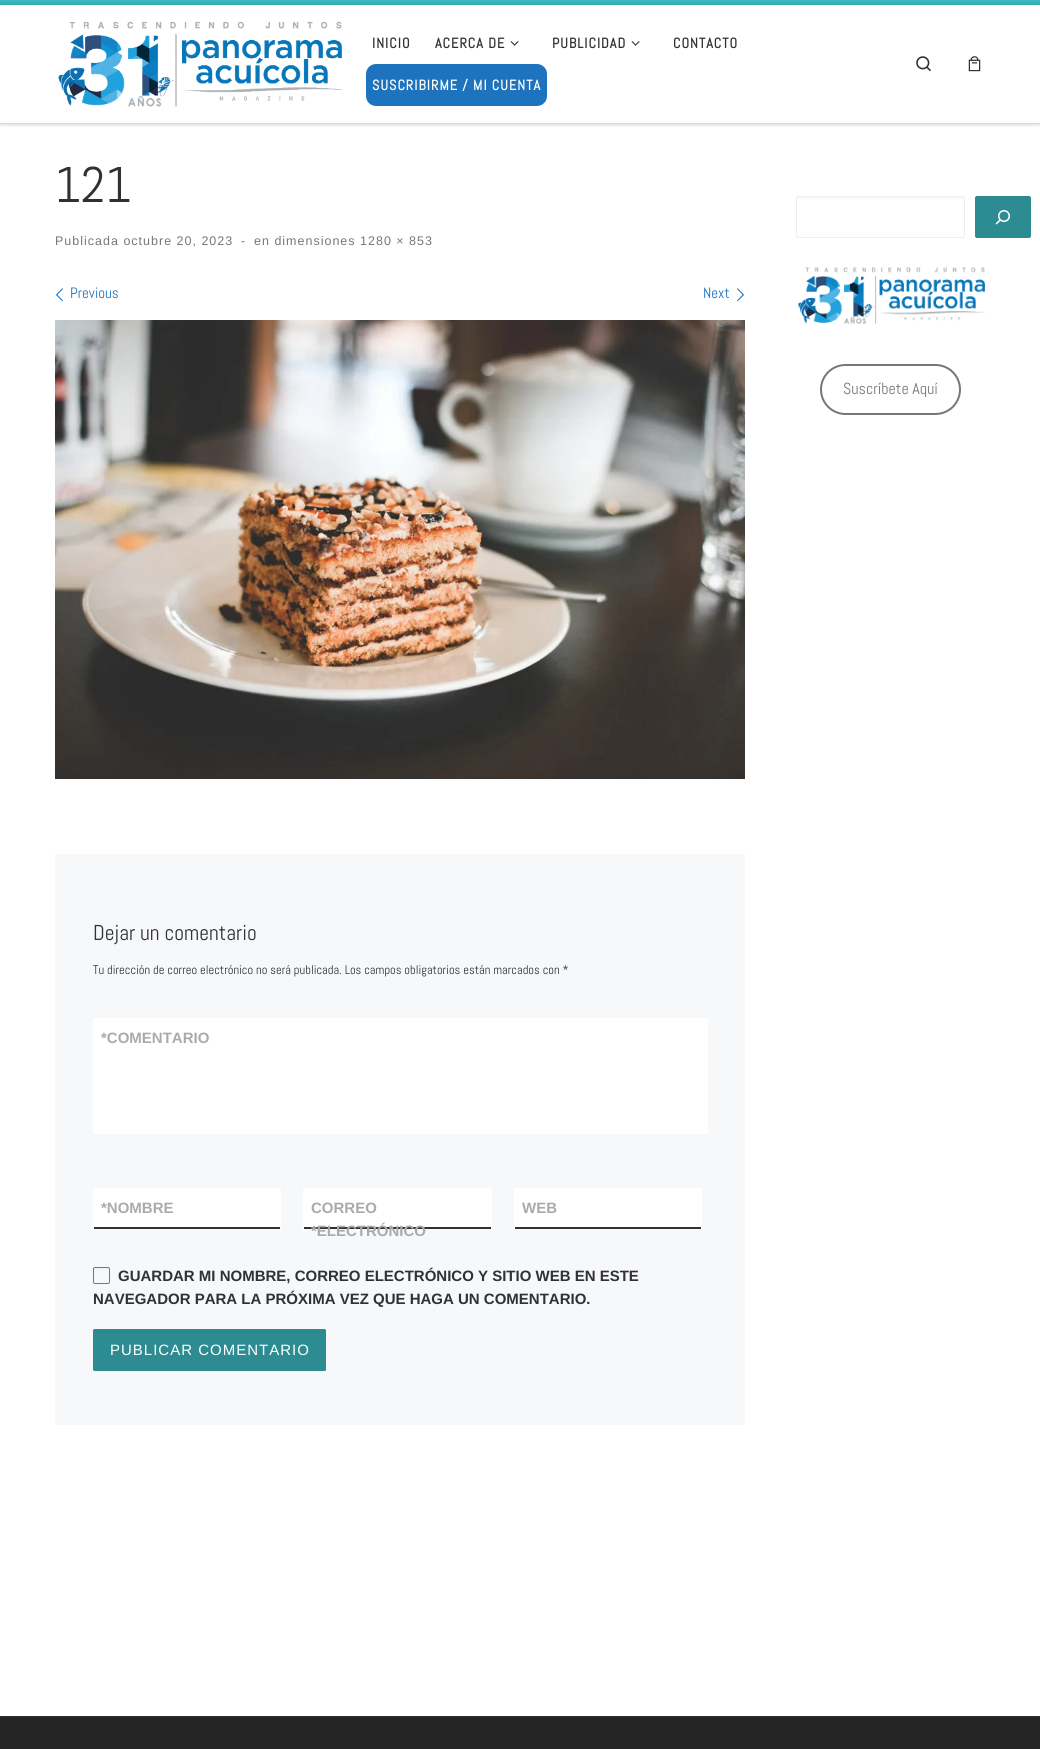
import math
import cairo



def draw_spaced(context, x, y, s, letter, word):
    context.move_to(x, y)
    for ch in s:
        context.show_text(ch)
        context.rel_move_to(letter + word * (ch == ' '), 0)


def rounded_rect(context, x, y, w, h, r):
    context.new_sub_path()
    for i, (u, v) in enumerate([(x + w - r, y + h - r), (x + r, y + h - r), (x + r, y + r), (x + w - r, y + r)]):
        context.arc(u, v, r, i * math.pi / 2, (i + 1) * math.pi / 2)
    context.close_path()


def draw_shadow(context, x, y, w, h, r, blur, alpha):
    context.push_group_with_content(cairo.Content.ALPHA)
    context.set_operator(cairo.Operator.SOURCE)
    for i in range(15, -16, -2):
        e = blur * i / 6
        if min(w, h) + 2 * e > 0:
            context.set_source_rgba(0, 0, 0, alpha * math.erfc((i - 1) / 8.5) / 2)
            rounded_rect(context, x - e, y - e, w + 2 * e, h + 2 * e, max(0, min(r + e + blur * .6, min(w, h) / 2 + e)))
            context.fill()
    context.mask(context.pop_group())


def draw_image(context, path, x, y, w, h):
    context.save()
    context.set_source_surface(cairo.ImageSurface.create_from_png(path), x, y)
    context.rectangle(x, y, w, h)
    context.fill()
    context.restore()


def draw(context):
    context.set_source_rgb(1, 1, 1)
    context.paint()
    context.save()
    context.rectangle(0, 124, 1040, 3)
    context.clip()
    context.set_source_rgb(102 / 255, 102 / 255, 102 / 255)
    draw_shadow(context, 0, 2, 1040, 124, 0, 1, 0.08)
    context.restore()
    context.set_source_rgb(60 / 255, 184 / 255, 193 / 255)
    context.rectangle(0, 0, 1040, 5)
    context.fill()
    context.set_source_rgb(239 / 255, 239 / 255, 239 / 255)
    context.rectangle(0, 123, 1040, 1)
    context.fill()
    context.save()
    context.set_fill_rule(cairo.FillRule.EVEN_ODD)
    context.new_path()
    context.move_to(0, 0)
    context.line_to(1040, 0)
    context.line_to(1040, 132)
    context.line_to(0, 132)
    context.close_path()
    context.move_to(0, 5)
    context.line_to(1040, 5)
    context.line_to(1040, 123)
    context.line_to(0, 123)
    context.close_path()
    context.clip()
    context.set_source_rgb(0, 0, 0)
    draw_shadow(context, 0, 5, 1040, 118, 0, 2.5, 0.2)
    context.restore()
    draw_image(context, "images/1.png", 58, 21, 284, 86)
    draw_image(context, "images/2.png", 510, 41, 9, 5)
    draw_image(context, "images/2.png", 631, 41, 9, 5)
    context.set_source_rgb(30 / 255, 115 / 255, 190 / 255)
    rounded_rect(context, 366, 64, 181, 42, 10)
    context.fill()
    draw_image(context, "images/3.png", 916, 56, 15, 16)
    draw_image(context, "images/4.png", 968, 56, 13, 16)
    draw_image(context, "images/5.png", 56, 288, 7, 14)
    draw_image(context, "images/6.png", 737, 288, 7, 14)
    draw_image(context, "images/7.png", 55, 320, 690, 459)
    context.set_source_rgb(247 / 255, 248 / 255, 249 / 255)
    context.rectangle(55, 854, 690, 571)
    context.fill()
    context.set_source_rgb(1, 1, 1)
    rounded_rect(context, 93, 1018, 615, 116, 2)
    context.fill()
    rounded_rect(context, 93, 1188, 188, 41, 2)
    context.fill()
    context.set_source_rgb(49 / 255, 49 / 255, 49 / 255)
    context.rectangle(94, 1227, 186, 2)
    context.fill()
    context.set_source_rgb(1, 1, 1)
    rounded_rect(context, 303, 1188, 189, 41, 2)
    context.fill()
    context.set_source_rgb(49 / 255, 49 / 255, 49 / 255)
    context.rectangle(304, 1227, 187, 2)
    context.fill()
    context.set_source_rgb(1, 1, 1)
    rounded_rect(context, 514, 1188, 188, 41, 2)
    context.fill()
    context.set_source_rgb(49 / 255, 49 / 255, 49 / 255)
    context.rectangle(515, 1227, 186, 2)
    context.fill()
    context.set_source_rgb(241 / 255, 242 / 255, 243 / 255)
    context.set_fill_rule(cairo.FillRule.EVEN_ODD)
    context.new_path()
    context.move_to(95, 1270)
    context.curve_to(98, 1270, 108, 1269, 109, 1270)
    context.curve_to(109, 1267.5, 108, 1268, 106, 1268)
    context.line_to(97, 1268)
    context.curve_to(93.5, 1268, 94, 1268, 94, 1271.5)
    context.curve_to(94, 1270.5, 94.5, 1270, 95, 1270)
    context.close_path()
    context.move_to(94, 1282)
    context.line_to(94, 1280)
    context.close_path()
    context.fill()
    rounded_rect(context, 93.5, 1267.5, 16, 16, 1.5)
    context.set_source_rgb(119 / 255, 119 / 255, 119 / 255)
    context.set_line_width(1)
    context.stroke()
    context.set_source_rgb(45 / 255, 139 / 255, 146 / 255)
    rounded_rect(context, 93, 1329, 233, 42, 2)
    context.fill()
    context.set_source_rgb(44 / 255, 136 / 255, 142 / 255)
    context.rectangle(95, 1331, 229, 2)
    context.fill()
    rounded_rect(context, 94, 1330, 231, 40, 1)
    context.set_source_rgb(45 / 255, 139 / 255, 146 / 255)
    context.set_line_width(2)
    context.stroke()
    context.set_source_rgb(249 / 255, 249 / 255, 249 / 255)
    context.set_fill_rule(cairo.FillRule.WINDING)
    context.new_path()
    context.move_to(798, 199)
    context.line_to(963, 199)
    context.curve_to(964, 199, 964, 199, 964, 200)
    context.curve_to(964, 199, 964, 197, 963, 197)
    context.line_to(798, 197)
    context.curve_to(797, 197, 797, 199, 797, 200)
    context.curve_to(797, 199, 797, 199, 798, 199)
    context.close_path()
    context.fill()
    rounded_rect(context, 796.5, 196.5, 168, 41, 1.5)
    context.set_source_rgb(236 / 255, 238 / 255, 239 / 255)
    context.set_line_width(1)
    context.stroke()
    context.set_source_rgb(45 / 255, 139 / 255, 146 / 255)
    rounded_rect(context, 976, 197, 54, 40, 1)
    context.fill_preserve()
    context.set_line_width(2)
    context.stroke()
    draw_image(context, "images/8.png", 995, 210, 16, 15)
    draw_image(context, "images/9.png", 797, 267, 188, 57)
    rounded_rect(context, 821, 365, 139, 49, 24.5)
    context.set_source_rgb(119 / 255, 119 / 255, 119 / 255)
    context.stroke()
    context.set_source_rgb(49 / 255, 49 / 255, 49 / 255)
    context.rectangle(0, 1716, 1040, 1)
    context.fill()
    context.set_source_rgb(36 / 255, 36 / 255, 36 / 255)
    context.rectangle(0, 1717, 1040, 32)
    context.fill()
    context.select_font_face("Abel", cairo.FontSlant.NORMAL, cairo.FontWeight.BOLD)
    context.set_font_size(14.25)
    context.set_source_rgb(48 / 255, 49 / 255, 51 / 255)
    draw_spaced(context, 372, 48, "INICIO", 1, 0)
    draw_spaced(context, 435, 48, "ACERCA DE", 1, 0)
    draw_spaced(context, 552, 48, "PUBLICIDAD", 1, 0)
    draw_spaced(context, 673, 48, "CONTACTO", 1, 0)
    context.set_source_rgb(1, 1, 1)
    draw_spaced(context, 372, 90, "SUSCRIBIRME / MI CUENTA", 1, 0)
    context.select_font_face("Abel")
    context.set_font_size(50)
    context.set_source_rgb(48 / 255, 49 / 255, 51 / 255)
    context.move_to(55, 202)
    context.show_text("121")
    context.select_font_face("Liberation Sans")
    context.set_font_size(12.5)
    context.set_source_rgb(119 / 255, 119 / 255, 119 / 255)
    draw_spaced(context, 55, 245, "Publicada octubre 20, 2023", 1, 0)
    draw_spaced(context, 241, 245, "-", 1, 0)
    draw_spaced(context, 254, 245, "en dimensiones 1280 × 853", 1, 0)
    context.select_font_face("Abel")
    context.set_font_size(15)
    context.set_source_rgb(30 / 255, 115 / 255, 190 / 255)
    context.move_to(70, 298)
    context.show_text("Previous")
    context.move_to(703, 298)
    context.show_text("Next")
    context.set_font_size(21.5)
    context.set_source_rgb(48 / 255, 49 / 255, 51 / 255)
    context.move_to(93, 940)
    context.show_text("Dejar un comentario")
    context.set_font_size(12.5)
    context.move_to(93, 974)
    context.show_text("Tu dirección de correo electrónico no será publicada. Los campos obligatorios están marcados con *")
    context.select_font_face("Liberation Sans", cairo.FontSlant.NORMAL, cairo.FontWeight.BOLD)
    context.set_font_size(15)
    context.set_source_rgb(170 / 255, 170 / 255, 170 / 255)
    context.move_to(101, 1043)
    context.show_text("*COMENTARIO")
    context.move_to(101, 1213)
    context.show_text("*NOMBRE")
    context.move_to(311, 1213)
    context.show_text("CORREO")
    context.move_to(311, 1236)
    context.show_text("*ELECTRÓNICO")
    context.move_to(522, 1213)
    context.show_text("WEB")
    context.set_source_rgb(48 / 255, 49 / 255, 51 / 255)
    context.move_to(118, 1281)
    context.show_text("GUARDAR MI NOMBRE, CORREO ELECTRÓNICO Y SITIO WEB EN ESTE")
    context.move_to(93, 1304)
    context.show_text("NAVEGADOR PARA LA PRÓXIMA VEZ QUE HAGA UN COMENTARIO.")
    context.select_font_face("Liberation Sans")
    context.set_source_rgb(1, 1, 1)
    draw_spaced(context, 110, 1355, "PUBLICAR COMENTARIO", 1, 0)
    context.select_font_face("Abel")
    context.set_font_size(16)
    context.set_source_rgb(119 / 255, 119 / 255, 119 / 255)
    context.move_to(843, 394)
    context.show_text("Suscríbete Aquí")


surface = cairo.ImageSurface(cairo.Format.RGB24, 1040, 1749)
context = cairo.Context(surface)
options = cairo.FontOptions()
options.set_hint_metrics(cairo.HintMetrics.OFF)
options.set_hint_style(cairo.HintStyle.NONE)
context.set_font_options(options)
context.set_miter_limit(4)
draw(context)
surface.write_to_png("out.png")
